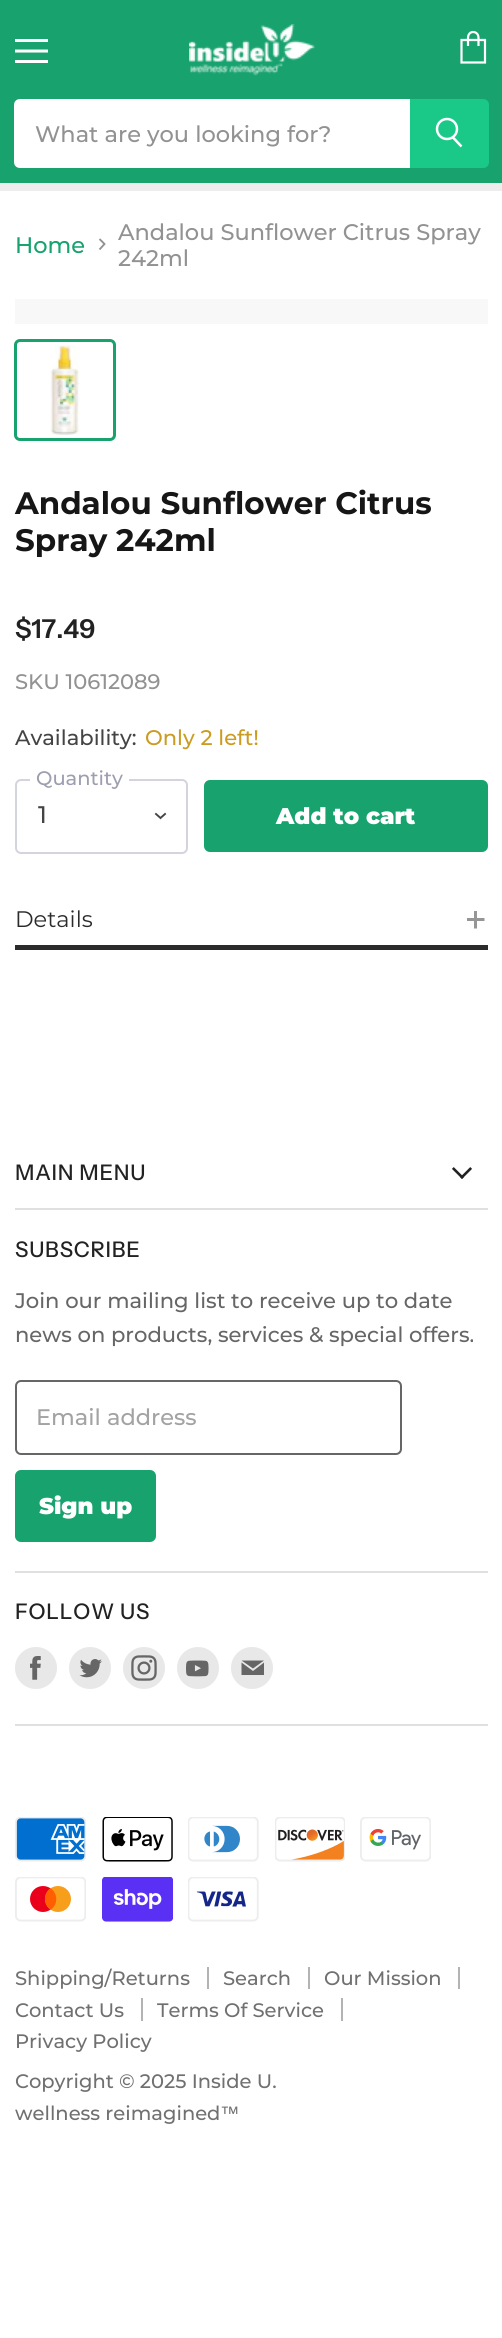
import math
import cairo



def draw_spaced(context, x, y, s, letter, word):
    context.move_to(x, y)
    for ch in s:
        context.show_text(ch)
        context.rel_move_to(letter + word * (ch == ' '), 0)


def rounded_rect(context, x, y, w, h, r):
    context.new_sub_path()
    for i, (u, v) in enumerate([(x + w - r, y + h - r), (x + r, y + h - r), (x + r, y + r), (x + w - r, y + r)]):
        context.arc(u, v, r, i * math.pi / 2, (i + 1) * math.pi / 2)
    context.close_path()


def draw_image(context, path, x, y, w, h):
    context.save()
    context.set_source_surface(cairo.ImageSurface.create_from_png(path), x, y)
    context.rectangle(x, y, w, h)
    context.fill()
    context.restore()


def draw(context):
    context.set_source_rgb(1, 1, 1)
    context.paint()
    context.set_source_rgb(23 / 255, 162 / 255, 110 / 255)
    context.rectangle(0, 0, 502, 183)
    context.fill()
    context.set_source_rgb(237 / 255, 237 / 255, 237 / 255)
    context.rectangle(0, 183, 502, 8)
    context.fill()
    context.set_source_rgb(1, 1, 1)
    context.rectangle(15, 39, 33, 3)
    context.fill()
    context.new_path()
    context.move_to(46.5, 51)
    context.line_to(16.5, 51)
    context.set_line_width(3)
    context.set_line_cap(cairo.LineCap.SQUARE)
    context.set_line_join(cairo.LineJoin.ROUND)
    context.stroke()
    context.rectangle(15, 60, 33, 3)
    context.fill()
    context.new_path()
    context.move_to(461.5, 40)
    context.line_to(485, 40)
    context.line_to(485, 62.5)
    context.line_to(461.5, 62.5)
    context.close_path()
    context.move_to(478.5, 46)
    context.line_to(478.5, 38)
    context.curve_to(478.5, 34, 476, 32, 473, 32)
    context.curve_to(470.5, 32, 468, 34, 468, 38)
    context.line_to(468, 46)
    context.set_line_width(2.2)
    context.set_line_cap(cairo.LineCap.BUTT)
    context.set_line_join(cairo.LineJoin.MITER)
    context.stroke()
    draw_image(context, "images/1.png", 189, 24, 126, 52)
    context.new_path()
    context.move_to(20, 99)
    context.line_to(410, 99)
    context.line_to(410, 168)
    context.line_to(20, 168)
    context.curve_to(16.5, 168, 14, 165.5, 14, 162)
    context.line_to(14, 105)
    context.curve_to(14, 101.5, 16.5, 99, 20, 99)
    context.close_path()
    context.fill()
    context.set_source_rgb(26 / 255, 201 / 255, 136 / 255)
    context.new_path()
    context.move_to(410, 99)
    context.line_to(483, 99)
    context.curve_to(486.5, 99, 489, 101.5, 489, 105)
    context.line_to(489, 162)
    context.curve_to(489, 165.5, 486.5, 168, 483, 168)
    context.line_to(410, 168)
    context.close_path()
    context.fill()
    context.new_path()
    context.move_to(461.5, 146.5)
    context.line_to(453, 137.5)
    context.set_source_rgb(1, 1, 1)
    context.set_line_width(2.5)
    context.stroke()
    context.arc(447, 129, 10, 0, 2 * math.pi)
    context.stroke()
    context.save()
    context.new_path()
    context.move_to(98, 250.5)
    context.line_to(98, 238.5)
    context.line_to(105.5, 238.5)
    context.line_to(105.5, 250.5)
    context.close_path()
    context.clip()
    context.new_path()
    context.move_to(99.5, 249.5)
    context.line_to(104.5, 244)
    context.line_to(99.5, 239)
    context.set_source_rgb(146 / 255, 146 / 255, 146 / 255)
    context.set_line_width(1.9)
    context.stroke()
    context.restore()
    context.set_source_rgb(248 / 255, 248 / 255, 248 / 255)
    context.rectangle(15, 299, 473, 25)
    context.fill()
    rounded_rect(context, 15.5, 340.5, 99, 99, 4.5)
    context.set_source_rgb(23 / 255, 162 / 255, 110 / 255)
    context.set_line_width(3)
    context.stroke()
    draw_image(context, "images/2.png", 50, 345, 30, 90)
    rounded_rect(context, 16, 780, 171, 73, 5)
    context.set_source_rgb(211 / 255, 212 / 255, 222 / 255)
    context.set_line_width(2)
    context.stroke()
    context.set_source_rgb(1, 1, 1)
    context.rectangle(30, 779, 99, 2)
    context.fill()
    context.new_path()
    context.move_to(160.5, 818)
    context.line_to(165, 814)
    context.move_to(160.5, 818)
    context.line_to(156, 814)
    context.set_source_rgb(68 / 255, 68 / 255, 68 / 255)
    context.set_line_width(1.9)
    context.set_line_cap(cairo.LineCap.SQUARE)
    context.stroke()
    context.set_source_rgb(23 / 255, 162 / 255, 110 / 255)
    rounded_rect(context, 205, 781, 282, 70, 5)
    context.fill_preserve()
    context.set_line_width(2)
    context.set_line_cap(cairo.LineCap.BUTT)
    context.stroke()
    context.set_source_rgb(43 / 255, 43 / 255, 43 / 255)
    context.rectangle(15, 945, 473, 5)
    context.fill()
    draw_image(context, "images/3.png", 467, 911, 18, 18)
    context.set_source_rgb(224 / 255, 224 / 255, 224 / 255)
    context.rectangle(15, 1208, 473, 2)
    context.fill()
    draw_image(context, "images/4.png", 452, 1167, 20, 12)
    context.rectangle(15, 1571, 473, 2)
    context.fill()
    rounded_rect(context, 16, 1381, 385, 73, 5)
    context.set_source_rgb(102 / 255, 102 / 255, 102 / 255)
    context.stroke()
    context.set_source_rgb(23 / 255, 162 / 255, 110 / 255)
    rounded_rect(context, 16, 1471, 139, 70, 5)
    context.fill_preserve()
    context.stroke()
    context.set_source_rgb(224 / 255, 224 / 255, 224 / 255)
    context.rectangle(15, 1724, 473, 2)
    context.fill()
    context.set_source_rgb(232 / 255, 232 / 255, 232 / 255)
    context.arc(36, 1668, 21, 0, 2 * math.pi)
    context.fill()
    draw_image(context, "images/5.png", 30, 1656, 11, 24)
    context.arc(90, 1668, 21, 0, 2 * math.pi)
    context.fill()
    draw_image(context, "images/6.png", 79, 1659, 23, 19)
    context.arc(144, 1668, 21, 0, 2 * math.pi)
    context.fill()
    draw_image(context, "images/7.png", 131, 1655, 26, 26)
    context.arc(198, 1668, 21, 0, 2 * math.pi)
    context.fill()
    draw_image(context, "images/8.png", 186, 1660, 23, 17)
    context.arc(252, 1668, 21, 0, 2 * math.pi)
    context.fill()
    context.set_source_rgb(102 / 255, 102 / 255, 102 / 255)
    context.set_fill_rule(cairo.FillRule.EVEN_ODD)
    context.new_path()
    context.move_to(264, 1660.5)
    context.line_to(241.5, 1660.5)
    context.line_to(253, 1668.5)
    context.close_path()
    context.move_to(253, 1671)
    context.line_to(241.5, 1662.5)
    context.line_to(241.5, 1675)
    context.line_to(264, 1675)
    context.line_to(264, 1662.5)
    context.close_path()
    context.fill()
    draw_image(context, "images/9.png", 15, 1817, 71, 45)
    draw_image(context, "images/10.png", 102, 1817, 71, 45)
    draw_image(context, "images/11.png", 188, 1817, 71, 45)
    draw_image(context, "images/12.png", 275, 1817, 70, 45)
    draw_image(context, "images/13.png", 360, 1817, 71, 45)
    draw_image(context, "images/14.png", 15, 1877, 71, 45)
    draw_image(context, "images/15.png", 102, 1877, 71, 45)
    draw_image(context, "images/16.png", 188, 1877, 71, 45)
    context.set_source_rgb(179 / 255, 179 / 255, 179 / 255)
    context.rectangle(207, 1967, 2, 22)
    context.fill()
    context.rectangle(308, 1967, 2, 22)
    context.fill()
    context.rectangle(458, 1967, 2, 22)
    context.fill()
    context.rectangle(141, 1998, 2, 23)
    context.fill()
    context.rectangle(341, 1998, 2, 23)
    context.fill()
    context.select_font_face("Montserrat Medium")
    context.set_font_size(22.5)
    context.set_source_rgb(146 / 255, 146 / 255, 146 / 255)
    context.move_to(35, 142)
    context.show_text("What are you looking for?")
    context.set_source_rgb(23 / 255, 162 / 255, 110 / 255)
    context.move_to(15, 253)
    context.show_text("Home")
    context.set_source_rgb(146 / 255, 146 / 255, 146 / 255)
    context.move_to(118, 240)
    context.show_text("Andalou Sunflower Citrus Spray")
    context.move_to(118, 266)
    context.show_text("242ml")
    context.select_font_face("Montserrat", cairo.FontSlant.NORMAL, cairo.FontWeight.BOLD)
    context.set_font_size(31)
    context.set_source_rgb(22 / 255, 22 / 255, 22 / 255)
    context.move_to(15, 514)
    context.show_text("Andalou Sunflower Citrus")
    context.move_to(15, 551)
    context.show_text("Spray 242ml")
    context.select_font_face("Instrument Sans SemiBold")
    context.set_font_size(26)
    context.set_source_rgb(34 / 255, 34 / 255, 34 / 255)
    context.move_to(15, 638)
    context.show_text("$17.49")
    context.select_font_face("Montserrat Medium")
    context.set_font_size(21)
    context.set_source_rgb(146 / 255, 146 / 255, 146 / 255)
    context.move_to(15, 689)
    context.show_text("SKU 10612089")
    context.set_font_size(21.1)
    context.set_source_rgb(68 / 255, 68 / 255, 68 / 255)
    context.move_to(15, 745)
    context.show_text("Availability:")
    context.set_source_rgb(203 / 255, 156 / 255, 34 / 255)
    context.move_to(145, 745)
    context.show_text("Only 2 left!")
    context.set_font_size(19.5)
    context.set_source_rgb(157 / 255, 158 / 255, 175 / 255)
    context.move_to(36, 785)
    context.show_text("Quantity")
    context.save()
    context.set_fill_rule(cairo.FillRule.WINDING)
    context.rectangle(38, 803, 94, 27)
    context.clip()
    context.set_font_size(24)
    context.set_source_rgb(68 / 255, 68 / 255, 68 / 255)
    context.move_to(38, 823)
    context.show_text("1")
    context.restore()
    context.select_font_face("Montserrat Black")
    context.set_font_size(22.75)
    context.set_source_rgb(1, 1, 1)
    context.move_to(276, 824)
    context.show_text("Add to cart")
    context.select_font_face("Montserrat")
    context.set_font_size(22.5)
    context.set_source_rgb(43 / 255, 43 / 255, 43 / 255)
    context.move_to(15, 927)
    context.show_text("Details")
    context.select_font_face("Instrument Sans Medium")
    context.set_font_size(21.5)
    context.set_source_rgb(34 / 255, 34 / 255, 34 / 255)
    draw_spaced(context, 15, 1180, "MAIN MENU", 0.75, 0)
    draw_spaced(context, 15, 1257, "SUBSCRIBE", 0.75, 0)
    context.select_font_face("Montserrat Medium")
    context.set_font_size(21.1)
    context.set_source_rgb(102 / 255, 102 / 255, 102 / 255)
    context.move_to(15, 1308)
    context.show_text("Join our mailing list to receive up to date")
    context.move_to(15, 1342)
    context.show_text("news on products, services & special offers.")
    context.set_font_size(22.5)
    context.set_source_rgb(163 / 255, 163 / 255, 163 / 255)
    context.move_to(36, 1425)
    context.show_text("Email address")
    context.select_font_face("Montserrat Black")
    context.set_font_size(22.75)
    context.set_source_rgb(1, 1, 1)
    context.move_to(39, 1514)
    context.show_text("Sign up")
    context.select_font_face("Instrument Sans Medium")
    context.set_font_size(21.5)
    context.set_source_rgb(34 / 255, 34 / 255, 34 / 255)
    draw_spaced(context, 15, 1619, "FOLLOW US", 0.75, 0)
    context.select_font_face("Montserrat Medium")
    context.set_font_size(19.5)
    context.set_source_rgb(112 / 255, 112 / 255, 112 / 255)
    context.move_to(15, 1985)
    context.show_text("Shipping/Returns")
    context.move_to(223, 1985)
    context.show_text("Search")
    context.move_to(324, 1985)
    context.show_text("Our Mission")
    context.move_to(15, 2017)
    context.show_text("Contact Us")
    context.move_to(157, 2017)
    context.show_text("Terms Of Service")
    context.move_to(15, 2048)
    context.show_text("Privacy Policy")
    context.move_to(15, 2088)
    context.show_text("Copyright © 2025 Inside U.")
    context.move_to(15, 2120)
    context.show_text("wellness reimagined")
    context.select_font_face("Liberation Sans")
    context.move_to(220, 2120)
    context.show_text("™")


surface = cairo.ImageSurface(cairo.Format.RGB24, 502, 2338)
context = cairo.Context(surface)
options = cairo.FontOptions()
options.set_hint_metrics(cairo.HintMetrics.OFF)
options.set_hint_style(cairo.HintStyle.NONE)
context.set_font_options(options)
context.set_miter_limit(4)
draw(context)
surface.write_to_png("out.png")
